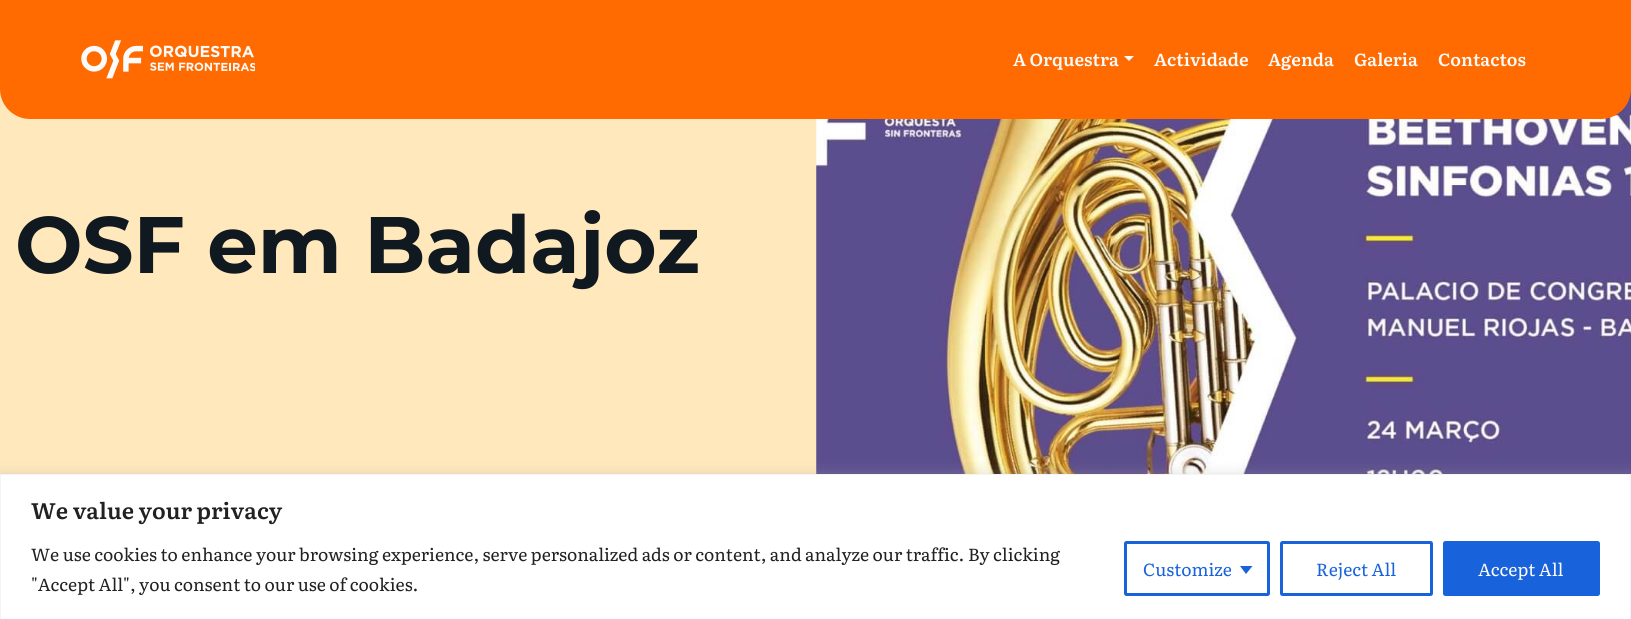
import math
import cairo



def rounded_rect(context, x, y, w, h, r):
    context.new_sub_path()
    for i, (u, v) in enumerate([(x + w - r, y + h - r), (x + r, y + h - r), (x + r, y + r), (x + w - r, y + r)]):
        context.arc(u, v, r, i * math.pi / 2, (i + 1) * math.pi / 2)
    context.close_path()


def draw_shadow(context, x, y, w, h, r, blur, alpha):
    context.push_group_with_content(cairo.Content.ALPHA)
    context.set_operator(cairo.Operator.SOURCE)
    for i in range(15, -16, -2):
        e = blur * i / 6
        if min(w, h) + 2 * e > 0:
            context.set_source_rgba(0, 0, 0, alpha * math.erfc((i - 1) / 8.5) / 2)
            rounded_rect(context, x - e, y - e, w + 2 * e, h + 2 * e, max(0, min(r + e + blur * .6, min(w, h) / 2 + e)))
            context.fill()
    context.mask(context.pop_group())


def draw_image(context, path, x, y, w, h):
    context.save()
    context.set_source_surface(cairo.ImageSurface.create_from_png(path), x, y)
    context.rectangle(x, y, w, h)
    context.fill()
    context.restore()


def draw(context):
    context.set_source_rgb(1, 232 / 255, 188 / 255)
    context.paint()
    draw_image(context, "images/2.png", 816, 89, 815, 385)
    context.set_source_rgb(1, 107 / 255, 0)
    context.new_path()
    context.move_to(0, 0)
    context.line_to(1631, 0)
    context.line_to(1631, 89)
    context.curve_to(1631, 105.5, 1617.5, 119, 1601, 119)
    context.line_to(30, 119)
    context.curve_to(13.5, 119, 0, 105.5, 0, 89)
    context.close_path()
    context.fill()
    draw_image(context, "images/1.png", 81, 40, 174, 39)
    context.set_source_rgb(251 / 255, 251 / 255, 251 / 255)
    context.new_path()
    context.move_to(1124, 56)
    context.line_to(1134, 56)
    context.line_to(1129, 61)
    context.close_path()
    context.fill()
    context.set_source_rgb(172 / 255, 171 / 255, 171 / 255)
    draw_shadow(context, 0, 473, 1631, 146, 0, 6, 0.3)
    context.set_source_rgb(1, 1, 1)
    context.rectangle(0.5, 474.5, 1630, 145)
    context.fill_preserve()
    context.set_source_rgb(244 / 255, 244 / 255, 244 / 255)
    context.set_line_width(1)
    context.stroke()
    rounded_rect(context, 1125.5, 542.5, 143, 52, 1)
    context.set_source_rgb(24 / 255, 99 / 255, 220 / 255)
    context.set_line_width(3)
    context.stroke()
    context.new_path()
    context.move_to(1240, 566)
    context.line_to(1252.5, 566)
    context.line_to(1246, 574)
    context.close_path()
    context.fill()
    rounded_rect(context, 1281.5, 542.5, 150, 52, 1)
    context.stroke()
    rounded_rect(context, 1444.5, 542.5, 154, 52, 1)
    context.fill_preserve()
    context.stroke()
    context.select_font_face("Literata SemiBold")
    context.set_font_size(17.5)
    context.set_source_rgb(251 / 255, 251 / 255, 251 / 255)
    context.move_to(1013, 66)
    context.show_text("A Orquestra")
    context.move_to(1154, 66)
    context.show_text("Actividade")
    context.move_to(1268, 66)
    context.show_text("Agenda")
    context.move_to(1354, 66)
    context.show_text("Galeria")
    context.move_to(1438, 66)
    context.show_text("Contactos")
    context.select_font_face("Montserrat", cairo.FontSlant.NORMAL, cairo.FontWeight.BOLD)
    context.set_font_size(80)
    context.set_source_rgb(16 / 255, 24 / 255, 32 / 255)
    context.move_to(15, 273)
    context.show_text("OSF em Badajoz")
    context.select_font_face("Literata SemiBold")
    context.set_font_size(22.5)
    context.set_source_rgb(33 / 255, 33 / 255, 33 / 255)
    context.move_to(31, 519)
    context.show_text("We value your privacy")
    context.select_font_face("Literata")
    context.set_font_size(17.5)
    context.move_to(31, 561)
    context.show_text("We use cookies to enhance your browsing experience, serve personalized ads or content, and analyze our traffic. By clicking")
    context.move_to(31, 591)
    context.show_text("\"Accept All\", you consent to our use of cookies.")
    context.set_source_rgb(24 / 255, 99 / 255, 220 / 255)
    context.move_to(1143, 576)
    context.show_text("Customize")
    context.move_to(1316, 576)
    context.show_text("Reject All")
    context.set_source_rgb(251 / 255, 251 / 255, 251 / 255)
    context.move_to(1478, 576)
    context.show_text("Accept All")


surface = cairo.ImageSurface(cairo.Format.RGB24, 1631, 619)
context = cairo.Context(surface)
options = cairo.FontOptions()
options.set_hint_metrics(cairo.HintMetrics.OFF)
options.set_hint_style(cairo.HintStyle.NONE)
context.set_font_options(options)
context.set_miter_limit(4)
draw(context)
surface.write_to_png("out.png")
